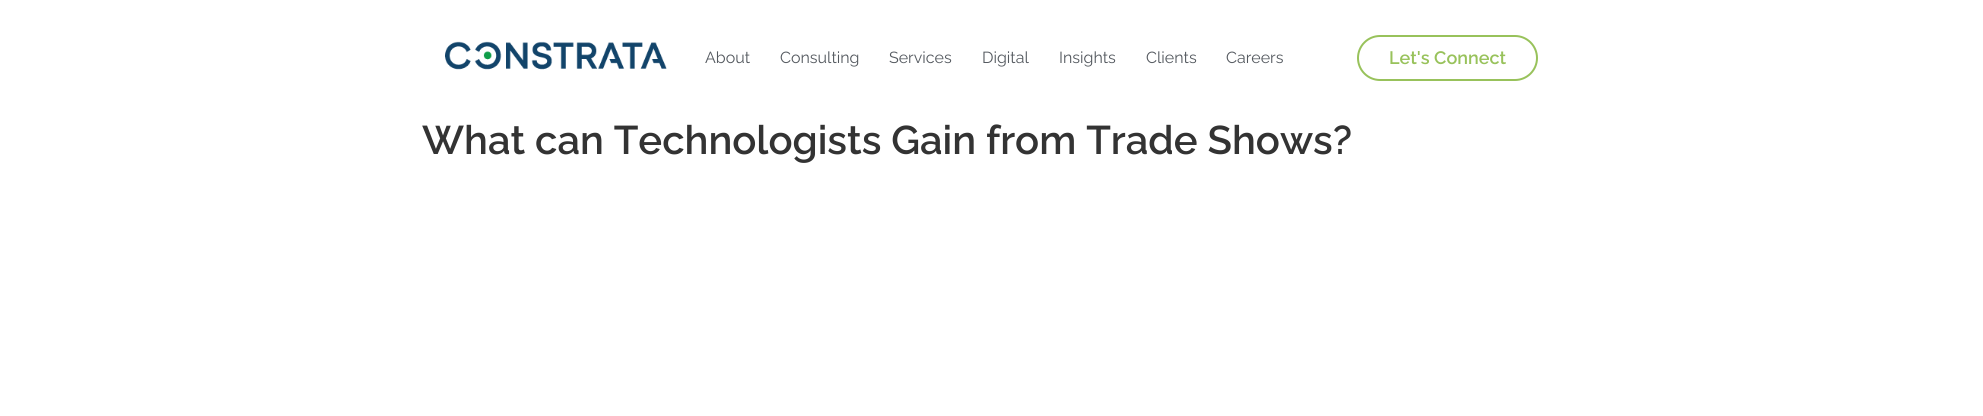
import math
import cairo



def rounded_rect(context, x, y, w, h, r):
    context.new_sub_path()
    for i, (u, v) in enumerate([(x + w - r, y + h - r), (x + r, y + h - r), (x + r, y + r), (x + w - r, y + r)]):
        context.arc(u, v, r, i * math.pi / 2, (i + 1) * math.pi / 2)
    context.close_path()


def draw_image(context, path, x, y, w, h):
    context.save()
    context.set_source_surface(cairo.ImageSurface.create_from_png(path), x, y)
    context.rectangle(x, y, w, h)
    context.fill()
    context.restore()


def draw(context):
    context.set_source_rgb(1, 1, 1)
    context.paint()
    draw_image(context, "images/1.png", 445, 41, 222, 29)
    rounded_rect(context, 1358, 36, 179, 44, 22)
    context.set_source_rgb(152 / 255, 194 / 255, 91 / 255)
    context.stroke()
    context.select_font_face("Raleway")
    context.set_font_size(16)
    context.set_source_rgb(84 / 255, 89 / 255, 95 / 255)
    context.move_to(705, 63)
    context.show_text("About")
    context.move_to(780, 63)
    context.show_text("Consulting")
    context.move_to(889, 63)
    context.show_text("Services")
    context.move_to(982, 63)
    context.show_text("Digital")
    context.move_to(1059, 63)
    context.show_text("Insights")
    context.move_to(1146, 63)
    context.show_text("Clients")
    context.move_to(1226, 63)
    context.show_text("Careers")
    context.select_font_face("Raleway SemiBold")
    context.set_font_size(18)
    context.set_source_rgb(152 / 255, 194 / 255, 91 / 255)
    context.move_to(1389, 64)
    context.show_text("Let's Connect")
    context.set_font_size(40)
    context.set_source_rgb(51 / 255, 51 / 255, 51 / 255)
    context.move_to(422, 154)
    context.show_text("What can Technologists Gain from Trade Shows?")


surface = cairo.ImageSurface(cairo.Format.RGB24, 1983, 416)
context = cairo.Context(surface)
options = cairo.FontOptions()
options.set_hint_metrics(cairo.HintMetrics.OFF)
options.set_hint_style(cairo.HintStyle.NONE)
context.set_font_options(options)
context.set_miter_limit(4)
draw(context)
surface.write_to_png("out.png")
